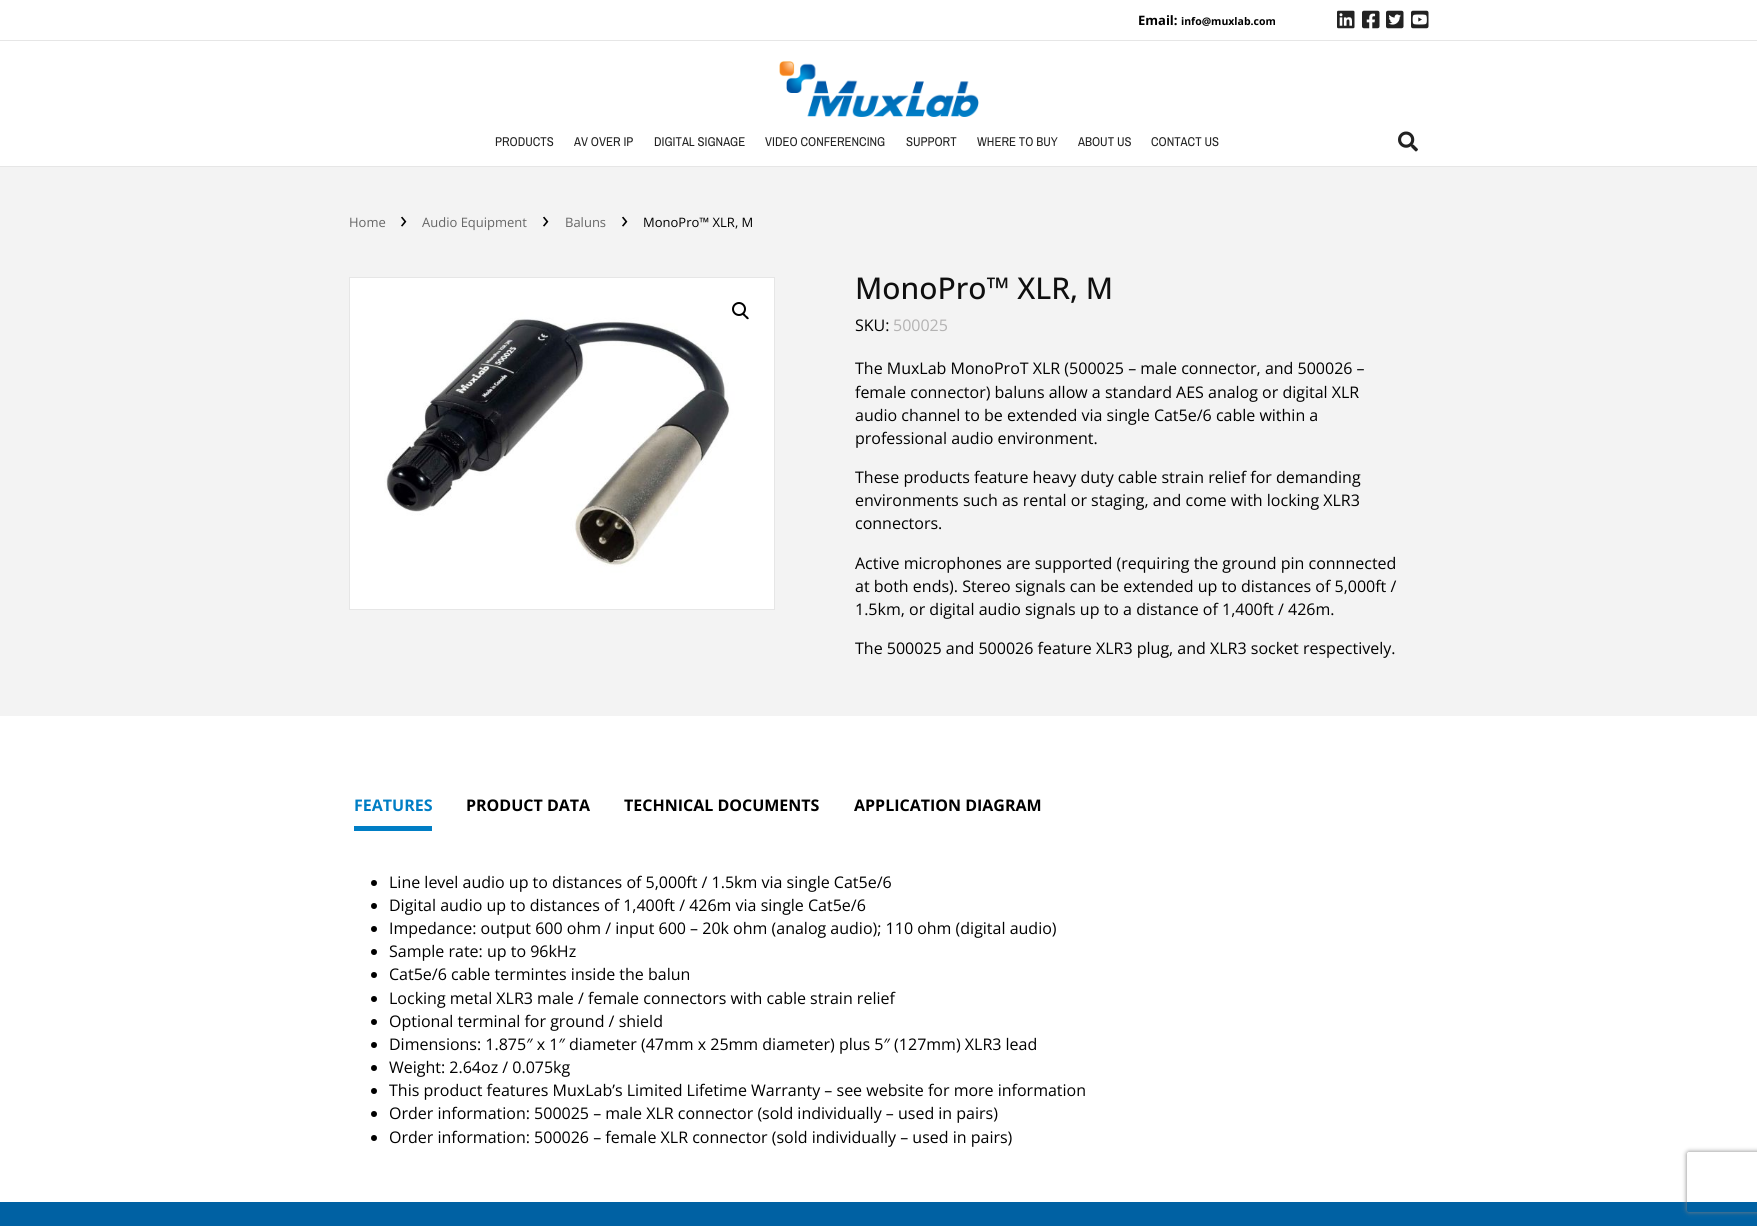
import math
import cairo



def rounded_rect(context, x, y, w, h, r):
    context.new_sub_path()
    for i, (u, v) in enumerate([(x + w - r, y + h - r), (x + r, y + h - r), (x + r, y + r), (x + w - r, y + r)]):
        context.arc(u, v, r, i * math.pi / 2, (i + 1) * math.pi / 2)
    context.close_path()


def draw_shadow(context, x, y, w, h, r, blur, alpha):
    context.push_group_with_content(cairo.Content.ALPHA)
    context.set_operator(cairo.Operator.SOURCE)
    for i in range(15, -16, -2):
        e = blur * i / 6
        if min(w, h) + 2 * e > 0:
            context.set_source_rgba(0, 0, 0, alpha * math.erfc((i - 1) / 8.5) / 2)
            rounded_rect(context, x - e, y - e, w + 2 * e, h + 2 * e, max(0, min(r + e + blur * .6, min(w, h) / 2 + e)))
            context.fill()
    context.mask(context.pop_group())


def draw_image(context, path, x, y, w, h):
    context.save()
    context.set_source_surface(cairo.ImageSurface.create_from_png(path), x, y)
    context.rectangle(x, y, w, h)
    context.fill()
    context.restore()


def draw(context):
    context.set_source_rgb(1, 1, 1)
    context.paint()
    draw_image(context, "images/1.png", 1337, 10, 18, 19)
    draw_image(context, "images/2.png", 1362, 10, 18, 19)
    draw_image(context, "images/3.png", 1386, 10, 18, 19)
    draw_image(context, "images/4.png", 1411, 10, 18, 19)
    context.set_source_rgb(230 / 255, 230 / 255, 230 / 255)
    context.rectangle(0, 40, 1757, 1)
    context.fill()
    context.rectangle(0, 166, 1757, 1)
    context.fill()
    draw_image(context, "images/5.png", 779, 61, 200, 56)
    draw_image(context, "images/6.png", 1398, 131, 20, 21)
    context.set_source_rgb(243 / 255, 243 / 255, 243 / 255)
    context.rectangle(0, 167, 1757, 549)
    context.fill()
    context.rectangle(349.5, 277.5, 425, 332)
    context.set_source_rgb(230 / 255, 230 / 255, 230 / 255)
    context.set_line_width(1)
    context.stroke()
    draw_image(context, "images/7.png", 350, 278, 424, 331)
    context.arc(739, 309, 6, 0, 2 * math.pi)
    context.set_source_rgb(0, 0, 0)
    context.set_line_width(2)
    context.stroke()
    context.new_path()
    context.move_to(742.5, 313.5)
    context.curve_to(744, 312, 745.5, 315, 746, 315.5)
    context.curve_to(747, 316, 749.5, 318, 748.5, 319)
    context.curve_to(747, 320, 745.5, 317.5, 745, 317)
    context.curve_to(744, 316, 741.5, 314.5, 742.5, 313.5)
    context.close_path()
    context.fill()
    context.set_source_rgb(0, 126 / 255, 197 / 255)
    context.rectangle(354, 826, 78, 5)
    context.fill()
    context.set_source_rgb(0, 0, 0)
    context.arc(374, 883, 3, 0, 2 * math.pi)
    context.fill()
    context.arc(374, 906, 3, 0, 2 * math.pi)
    context.fill()
    context.arc(374, 929, 3, 0, 2 * math.pi)
    context.fill()
    context.arc(374, 952, 3, 0, 2 * math.pi)
    context.fill()
    context.arc(374, 975, 3, 0, 2 * math.pi)
    context.fill()
    context.arc(374, 999, 3, 0, 2 * math.pi)
    context.fill()
    context.arc(374, 1022, 3, 0, 2 * math.pi)
    context.fill()
    context.arc(374, 1045, 3, 0, 2 * math.pi)
    context.fill()
    context.arc(374, 1068, 3, 0, 2 * math.pi)
    context.fill()
    context.arc(374, 1091, 3, 0, 2 * math.pi)
    context.fill()
    context.arc(374, 1114, 3, 0, 2 * math.pi)
    context.fill()
    context.arc(374, 1138, 3, 0, 2 * math.pi)
    context.fill()
    context.set_source_rgb(0, 97 / 255, 163 / 255)
    context.rectangle(0, 1202, 1757, 24)
    context.fill()
    context.save()
    context.set_fill_rule(cairo.FillRule.EVEN_ODD)
    context.new_path()
    context.move_to(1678, 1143)
    context.line_to(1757, 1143)
    context.line_to(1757, 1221)
    context.line_to(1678, 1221)
    context.close_path()
    context.move_to(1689, 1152)
    context.line_to(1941, 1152)
    context.curve_to(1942, 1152, 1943, 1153, 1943, 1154)
    context.line_to(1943, 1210)
    context.curve_to(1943, 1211, 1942, 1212, 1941, 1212)
    context.line_to(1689, 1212)
    context.curve_to(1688, 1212, 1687, 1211, 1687, 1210)
    context.line_to(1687, 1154)
    context.curve_to(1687, 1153, 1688, 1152, 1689, 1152)
    context.close_path()
    context.clip()
    context.set_source_rgb(128 / 255, 128 / 255, 128 / 255)
    draw_shadow(context, 1687, 1152, 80, 60, 2, 2.5, 1)
    context.restore()
    context.select_font_face("Open Sans", cairo.FontSlant.NORMAL, cairo.FontWeight.BOLD)
    context.set_font_size(13)
    context.set_source_rgb(0, 0, 0)
    context.move_to(1138, 25)
    context.show_text("Email:")
    context.set_font_size(10.5)
    context.move_to(1181, 25)
    context.show_text("info@muxlab.com")
    context.select_font_face("Archivo Narrow")
    context.set_font_size(12.75)
    context.set_source_rgb(34 / 255, 34 / 255, 34 / 255)
    context.move_to(495, 146)
    context.show_text("PRODUCTS")
    context.move_to(574, 146)
    context.show_text("AV OVER IP")
    context.move_to(654, 146)
    context.show_text("DIGITAL SIGNAGE")
    context.move_to(765, 146)
    context.show_text("VIDEO CONFERENCING")
    context.move_to(906, 146)
    context.show_text("SUPPORT")
    context.move_to(977, 146)
    context.show_text("WHERE TO BUY")
    context.move_to(1078, 146)
    context.show_text("ABOUT US")
    context.move_to(1151, 146)
    context.show_text("CONTACT US")
    context.select_font_face("Open Sans")
    context.set_font_size(13)
    context.set_source_rgb(102 / 255, 102 / 255, 102 / 255)
    context.move_to(349, 227)
    context.show_text("Home")
    context.set_font_size(24)
    context.set_source_rgb(0, 0, 0)
    context.move_to(400, 228)
    context.show_text("›")
    context.set_font_size(13)
    context.set_source_rgb(102 / 255, 102 / 255, 102 / 255)
    context.move_to(422, 227)
    context.show_text("Audio Equipment")
    context.set_font_size(24)
    context.set_source_rgb(0, 0, 0)
    context.move_to(542, 228)
    context.show_text("›")
    context.set_font_size(13)
    context.set_source_rgb(102 / 255, 102 / 255, 102 / 255)
    context.move_to(565, 227)
    context.show_text("Baluns")
    context.set_font_size(24)
    context.set_source_rgb(0, 0, 0)
    context.move_to(621, 228)
    context.show_text("›")
    context.set_font_size(13)
    context.move_to(643, 227)
    context.show_text("MonoPro™ XLR, M")
    context.select_font_face("Open Sans Medium")
    context.set_font_size(30)
    context.set_source_rgb(15 / 255, 15 / 255, 15 / 255)
    context.move_to(855, 299)
    context.show_text("MonoPro™ XLR, M")
    context.select_font_face("Open Sans")
    context.set_font_size(16)
    context.set_source_rgb(0, 0, 0)
    context.move_to(855, 331)
    context.show_text("SKU:")
    context.set_source_rgb(179 / 255, 178 / 255, 178 / 255)
    context.move_to(893, 331)
    context.show_text("500025")
    context.set_source_rgb(0, 0, 0)
    context.move_to(855, 374)
    context.show_text("The MuxLab MonoProT XLR (500025 – male connector, and 500026 –")
    context.move_to(855, 398)
    context.show_text("female connector) baluns allow a standard AES analog or digital XLR")
    context.move_to(855, 421)
    context.show_text("audio channel to be extended via single Cat5e/6 cable within a")
    context.move_to(855, 444)
    context.show_text("professional audio environment.")
    context.move_to(855, 483)
    context.show_text("These products feature heavy duty cable strain relief for demanding")
    context.move_to(855, 506)
    context.show_text("environments such as rental or staging, and come with locking XLR3")
    context.move_to(855, 529)
    context.show_text("connectors.")
    context.move_to(855, 569)
    context.show_text("Active microphones are supported (requiring the ground pin connnected")
    context.move_to(855, 592)
    context.show_text("at both ends). Stereo signals can be extended up to distances of 5,000ft /")
    context.move_to(855, 615)
    context.show_text("1.5km, or digital audio signals up to a distance of 1,400ft / 426m.")
    context.move_to(855, 654)
    context.show_text("The 500025 and 500026 feature XLR3 plug, and XLR3 socket respectively.")
    context.select_font_face("Open Sans", cairo.FontSlant.NORMAL, cairo.FontWeight.BOLD)
    context.set_source_rgb(0, 126 / 255, 197 / 255)
    context.move_to(354, 811)
    context.show_text("FEATURES")
    context.set_source_rgb(0, 0, 0)
    context.move_to(466, 811)
    context.show_text("PRODUCT DATA")
    context.move_to(624, 811)
    context.show_text("TECHNICAL DOCUMENTS")
    context.move_to(854, 811)
    context.show_text("APPLICATION DIAGRAM")
    context.select_font_face("Open Sans")
    context.move_to(389, 888)
    context.show_text("Line level audio up to distances of 5,000ft / 1.5km via single Cat5e/6")
    context.move_to(389, 911)
    context.show_text("Digital audio up to distances of 1,400ft / 426m via single Cat5e/6")
    context.move_to(389, 934)
    context.show_text("Impedance: output 600 ohm / input 600 – 20k ohm (analog audio); 110 ohm (digital audio)")
    context.move_to(389, 957)
    context.show_text("Sample rate: up to 96kHz")
    context.move_to(389, 980)
    context.show_text("Cat5e/6 cable termintes inside the balun")
    context.move_to(389, 1004)
    context.show_text("Locking metal XLR3 male / female connectors with cable strain relief")
    context.move_to(389, 1027)
    context.show_text("Optional terminal for ground / shield")
    context.move_to(389, 1050)
    context.show_text("Dimensions: 1.875″ x 1″ diameter (47mm x 25mm diameter) plus 5″ (127mm) XLR3 lead")
    context.move_to(389, 1073)
    context.show_text("Weight: 2.64oz / 0.075kg")
    context.move_to(389, 1096)
    context.show_text("This product features MuxLab’s Limited Lifetime Warranty – see website for more information")
    context.move_to(389, 1119)
    context.show_text("Order information: 500025 – male XLR connector (sold individually – used in pairs)")
    context.move_to(389, 1143)
    context.show_text("Order information: 500026 – female XLR connector (sold individually – used in pairs)")


surface = cairo.ImageSurface(cairo.Format.RGB24, 1757, 1226)
context = cairo.Context(surface)
options = cairo.FontOptions()
options.set_hint_metrics(cairo.HintMetrics.OFF)
options.set_hint_style(cairo.HintStyle.NONE)
context.set_font_options(options)
context.set_miter_limit(4)
draw(context)
surface.write_to_png("out.png")
